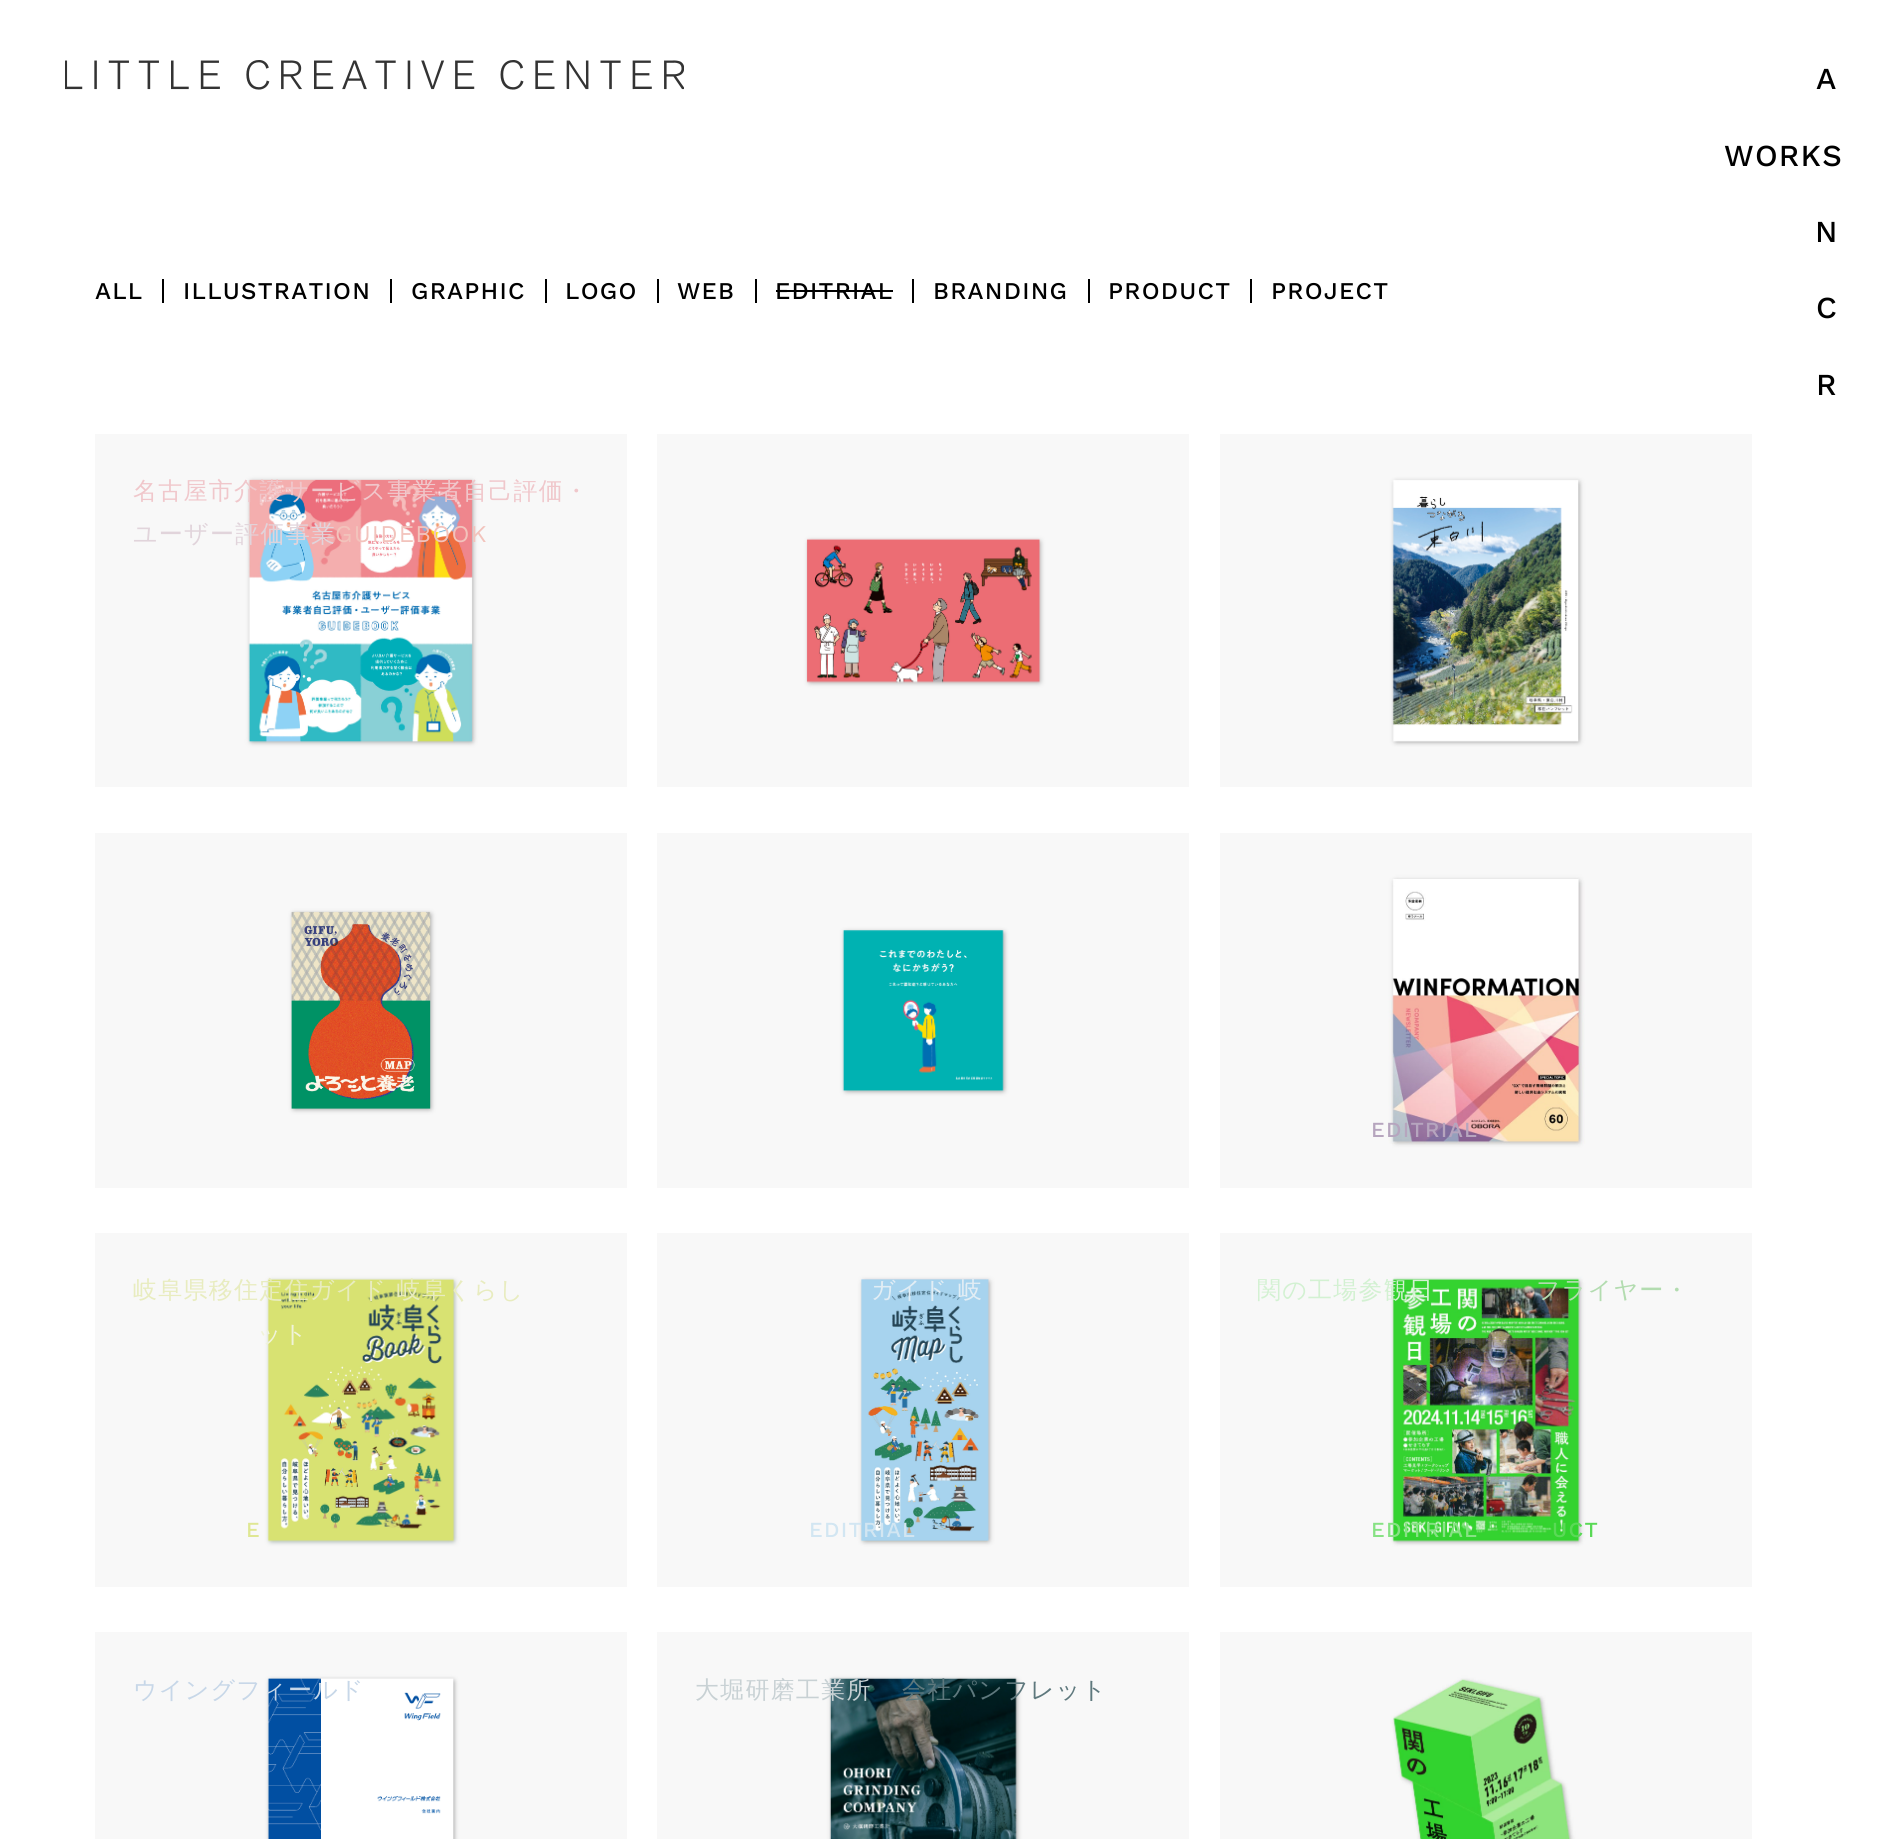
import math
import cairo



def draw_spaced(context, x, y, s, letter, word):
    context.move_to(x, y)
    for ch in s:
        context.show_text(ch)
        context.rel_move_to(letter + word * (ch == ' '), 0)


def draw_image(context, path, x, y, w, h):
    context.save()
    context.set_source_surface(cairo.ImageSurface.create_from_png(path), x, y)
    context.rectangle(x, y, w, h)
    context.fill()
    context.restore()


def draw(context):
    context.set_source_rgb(1, 1, 1)
    context.paint()
    draw_image(context, "images/1.png", 65, 60, 619, 30)
    context.set_source_rgb(0, 0, 0)
    context.rectangle(162, 279, 2, 24)
    context.fill()
    context.rectangle(390, 279, 2, 24)
    context.fill()
    context.rectangle(545, 279, 2, 24)
    context.fill()
    context.rectangle(657, 279, 2, 24)
    context.fill()
    context.rectangle(755, 279, 2, 24)
    context.fill()
    context.rectangle(776, 290, 117, 2)
    context.fill()
    context.rectangle(912, 279, 2, 24)
    context.fill()
    context.rectangle(1088, 279, 2, 24)
    context.fill()
    context.rectangle(1250, 279, 2, 24)
    context.fill()
    draw_image(context, "images/2.png", 95, 434, 532, 353)
    draw_image(context, "images/3.png", 657, 434, 532, 353)
    draw_image(context, "images/4.png", 1220, 434, 532, 353)
    draw_image(context, "images/5.png", 95, 833, 532, 355)
    draw_image(context, "images/6.png", 657, 833, 532, 355)
    draw_image(context, "images/7.png", 1220, 833, 532, 355)
    draw_image(context, "images/8.png", 95, 1233, 532, 354)
    draw_image(context, "images/9.png", 657, 1233, 532, 354)
    draw_image(context, "images/10.png", 1220, 1233, 532, 354)
    draw_image(context, "images/11.png", 95, 1632, 532, 207)
    draw_image(context, "images/12.png", 657, 1632, 532, 207)
    draw_image(context, "images/13.png", 1220, 1632, 532, 207)
    context.select_font_face("Work Sans Medium")
    context.set_font_size(30.5)
    draw_spaced(context, 1816, 89, "A", 1.25, 0)
    draw_spaced(context, 1724, 166, "WORKS", 1.25, 0)
    draw_spaced(context, 1815, 242, "N", 1.25, 0)
    draw_spaced(context, 1816, 318, "C", 1.25, 0)
    draw_spaced(context, 1816, 395, "R", 1.25, 0)
    context.set_font_size(24)
    draw_spaced(context, 95, 299, "ALL", 1.25, 0)
    draw_spaced(context, 183, 299, "ILLUSTRATION", 1.25, 0)
    draw_spaced(context, 411, 299, "GRAPHIC", 1.25, 0)
    draw_spaced(context, 565, 299, "LOGO", 1.25, 0)
    draw_spaced(context, 677, 299, "WEB", 1.25, 0)
    draw_spaced(context, 775, 299, "EDITRIAL", 1.25, 0)
    draw_spaced(context, 933, 299, "BRANDING", 1.25, 0)
    draw_spaced(context, 1108, 299, "PRODUCT", 1.25, 0)
    draw_spaced(context, 1271, 299, "PROJECT", 1.25, 0)
    context.select_font_face("WenQuanYi Zen Hei Medium")
    context.set_source_rgb(240 / 255, 199 / 255, 203 / 255)
    draw_spaced(context, 133, 499, "名古屋市介護サービス事業者自己評価・", 1.25, 0)
    context.set_source_rgb(225 / 255, 212 / 255, 219 / 255)
    draw_spaced(context, 133, 542, "ユーザー評価事業", 1.25, 0)
    context.select_font_face("Work Sans")
    context.set_source_rgb(242 / 255, 195 / 255, 188 / 255)
    draw_spaced(context, 335, 542, "GUIDEBOOK", 1.25, 0)
    context.select_font_face("Work Sans Medium")
    context.set_font_size(21.5)
    context.set_source_rgb(182 / 255, 165 / 255, 190 / 255)
    draw_spaced(context, 1371, 1137, "EDITRIAL", 1.25, 0)
    context.select_font_face("WenQuanYi Zen Hei Medium")
    context.set_font_size(24)
    context.set_source_rgb(232 / 255, 236 / 255, 191 / 255)
    draw_spaced(context, 133, 1298, "岐阜県移住定住ガイド 岐阜くらし", 1.25, 1)
    context.set_source_rgb(240 / 255, 243 / 255, 217 / 255)
    draw_spaced(context, 257, 1342, "ット", 1.25, 0)
    context.select_font_face("Work Sans Medium")
    context.set_font_size(21.5)
    context.set_source_rgb(223 / 255, 231 / 255, 147 / 255)
    draw_spaced(context, 246, 1537, "E", 1.25, 0)
    context.select_font_face("WenQuanYi Zen Hei Medium")
    context.set_font_size(24)
    context.set_source_rgb(226 / 255, 237 / 255, 244 / 255)
    draw_spaced(context, 871, 1298, "ガイド 岐", 1.25, 1)
    context.select_font_face("Work Sans Medium")
    context.set_font_size(21.5)
    context.set_source_rgb(210 / 255, 230 / 255, 242 / 255)
    draw_spaced(context, 809, 1537, "EDITRIAL", 1.25, 0)
    context.select_font_face("WenQuanYi Zen Hei Medium")
    context.set_font_size(24)
    context.set_source_rgb(211 / 255, 241 / 255, 210 / 255)
    draw_spaced(context, 1257, 1298, "関の工場参観日", 1.25, 0)
    context.set_source_rgb(179 / 255, 220 / 255, 176 / 255)
    draw_spaced(context, 1536, 1298, "フライヤー・", 1.25, 0)
    context.select_font_face("Work Sans Medium")
    context.set_font_size(21.5)
    context.set_source_rgb(135 / 255, 226 / 255, 132 / 255)
    draw_spaced(context, 1371, 1537, "EDITRIAL", 1.25, 0)
    context.set_source_rgb(90 / 255, 217 / 255, 86 / 255)
    draw_spaced(context, 1552, 1537, "UCT", 1.25, 0)
    context.select_font_face("WenQuanYi Zen Hei Medium")
    context.set_font_size(24)
    context.set_source_rgb(199 / 255, 215 / 255, 232 / 255)
    draw_spaced(context, 133, 1698, "ウイングフィールド", 1.25, 0)
    context.set_source_rgb(200 / 255, 209 / 255, 212 / 255)
    draw_spaced(context, 695, 1698, "大堀研磨工業所", 1.25, 0)
    context.set_source_rgb(94 / 255, 120 / 255, 125 / 255)
    draw_spaced(context, 902, 1698, "会社パンフレット", 1.25, 0)


surface = cairo.ImageSurface(cairo.Format.RGB24, 1902, 1839)
context = cairo.Context(surface)
options = cairo.FontOptions()
options.set_hint_metrics(cairo.HintMetrics.OFF)
options.set_hint_style(cairo.HintStyle.NONE)
context.set_font_options(options)
context.set_miter_limit(4)
draw(context)
surface.write_to_png("out.png")
